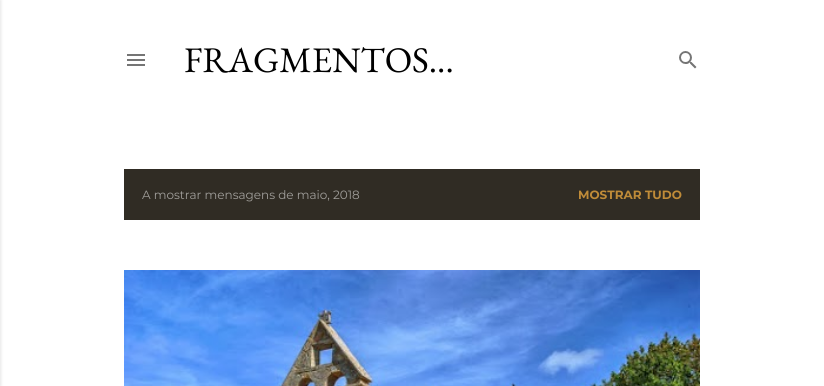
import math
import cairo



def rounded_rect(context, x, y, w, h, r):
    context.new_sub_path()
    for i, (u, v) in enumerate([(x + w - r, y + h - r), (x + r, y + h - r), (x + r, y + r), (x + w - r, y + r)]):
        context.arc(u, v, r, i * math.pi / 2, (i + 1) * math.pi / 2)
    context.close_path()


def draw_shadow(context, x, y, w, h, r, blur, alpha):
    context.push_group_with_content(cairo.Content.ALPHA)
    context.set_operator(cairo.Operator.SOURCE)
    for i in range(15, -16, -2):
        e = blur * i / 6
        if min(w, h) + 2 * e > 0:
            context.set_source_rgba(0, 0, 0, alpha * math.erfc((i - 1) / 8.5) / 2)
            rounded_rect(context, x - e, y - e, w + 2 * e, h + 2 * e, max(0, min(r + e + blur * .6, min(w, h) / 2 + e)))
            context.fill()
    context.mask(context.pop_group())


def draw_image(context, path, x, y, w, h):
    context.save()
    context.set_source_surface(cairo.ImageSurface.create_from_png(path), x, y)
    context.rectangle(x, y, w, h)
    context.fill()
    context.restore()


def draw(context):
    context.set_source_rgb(1, 1, 1)
    context.paint()
    context.set_source_rgb(0, 0, 0)
    draw_shadow(context, -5, 0, 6, 386, 0, 1.5, 0.1)
    draw_image(context, "images/1.png", 127, 54, 18, 12)
    draw_image(context, "images/2.png", 679, 51, 18, 18)
    context.set_source_rgb(48 / 255, 44 / 255, 36 / 255)
    context.rectangle(124, 169, 576, 51)
    context.fill()
    draw_image(context, "images/3.png", 124, 270, 576, 116)
    context.select_font_face("EB Garamond")
    context.set_font_size(36)
    context.set_source_rgb(0, 0, 0)
    context.move_to(184, 72)
    context.show_text("FRAGMENTOS...")
    context.select_font_face("Montserrat")
    context.set_font_size(12)
    context.set_source_rgb(160 / 255, 158 / 255, 154 / 255)
    context.move_to(142, 199)
    context.show_text("A mostrar mensagens de maio, 2018")
    context.select_font_face("Montserrat", cairo.FontSlant.NORMAL, cairo.FontWeight.BOLD)
    context.set_source_rgb(191 / 255, 139 / 255, 56 / 255)
    context.move_to(578, 199)
    context.show_text("MOSTRAR TUDO")


surface = cairo.ImageSurface(cairo.Format.RGB24, 824, 386)
context = cairo.Context(surface)
options = cairo.FontOptions()
options.set_hint_metrics(cairo.HintMetrics.OFF)
options.set_hint_style(cairo.HintStyle.NONE)
context.set_font_options(options)
context.set_miter_limit(4)
draw(context)
surface.write_to_png("out.png")
